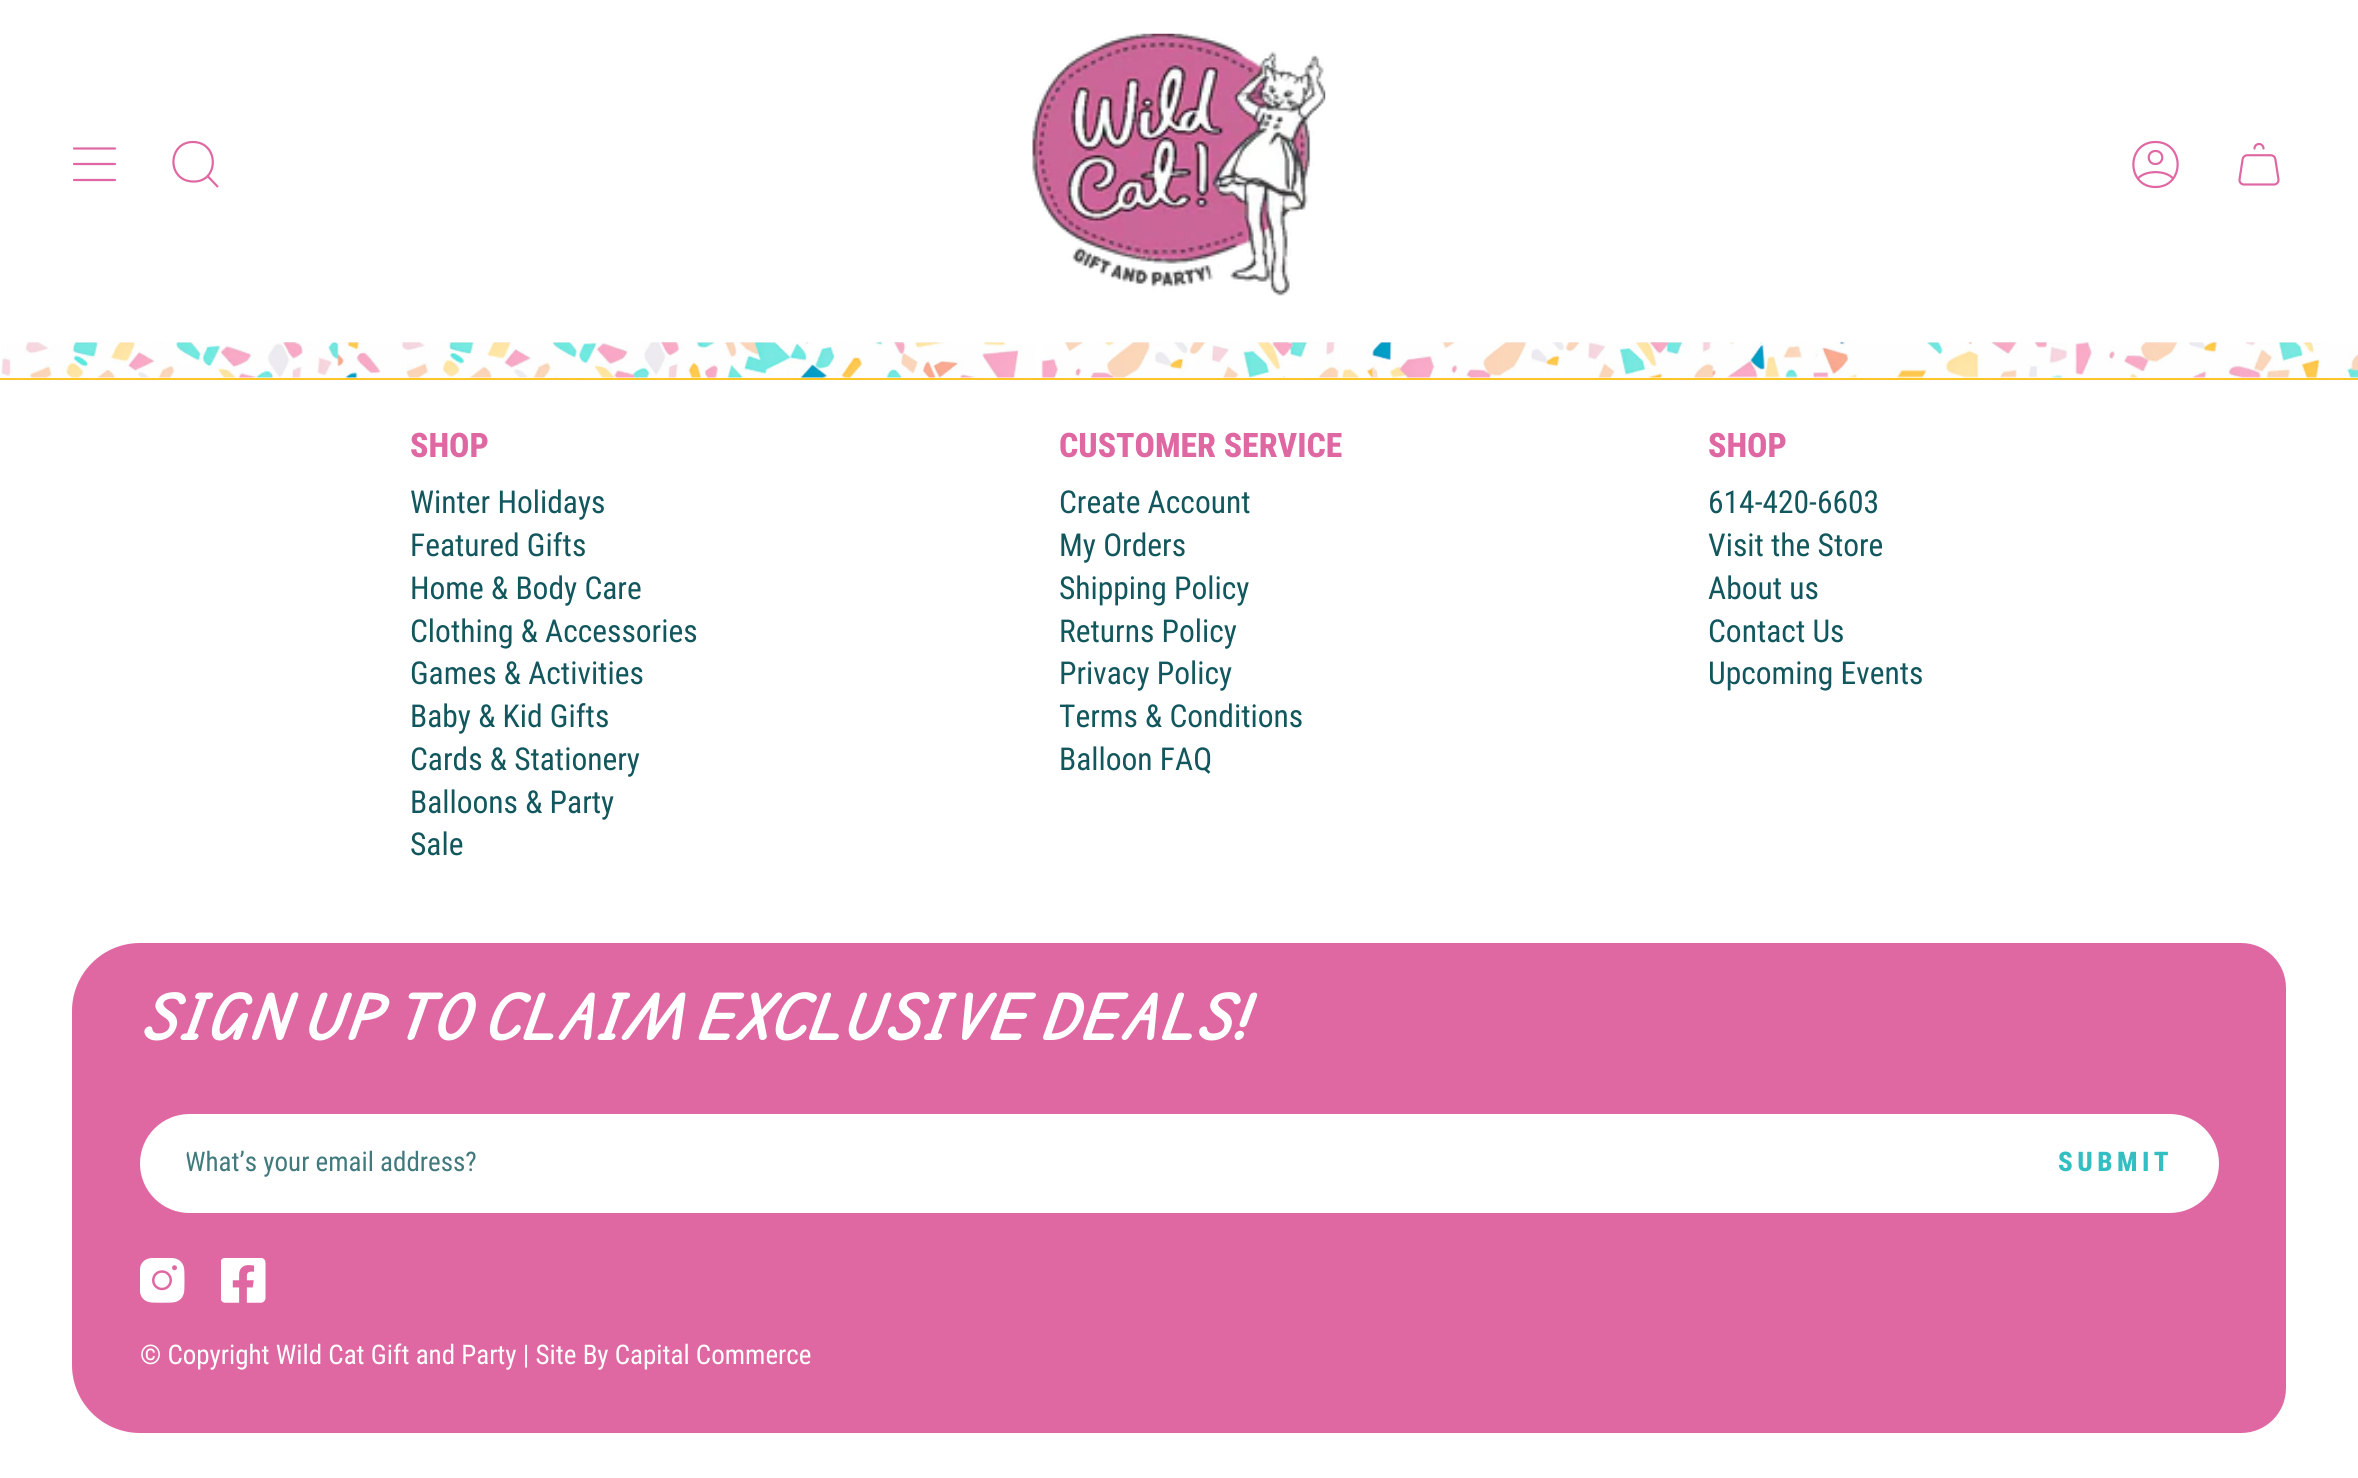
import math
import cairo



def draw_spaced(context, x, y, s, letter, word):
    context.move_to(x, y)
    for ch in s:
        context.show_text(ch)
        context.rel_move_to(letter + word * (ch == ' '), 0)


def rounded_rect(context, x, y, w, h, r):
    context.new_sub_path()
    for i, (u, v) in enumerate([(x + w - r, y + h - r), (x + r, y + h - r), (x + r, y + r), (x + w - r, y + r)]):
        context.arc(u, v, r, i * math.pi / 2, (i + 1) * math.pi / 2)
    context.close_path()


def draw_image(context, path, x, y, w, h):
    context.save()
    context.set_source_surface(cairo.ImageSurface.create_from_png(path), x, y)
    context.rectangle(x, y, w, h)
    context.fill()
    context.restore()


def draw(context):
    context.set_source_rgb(1, 1, 1)
    context.paint()
    context.new_path()
    context.move_to(74, 148.5)
    context.line_to(115, 148.5)
    context.move_to(74, 164)
    context.line_to(115, 164)
    context.move_to(74, 180)
    context.line_to(115, 180)
    context.set_source_rgb(223 / 255, 104 / 255, 163 / 255)
    context.set_line_width(2.2)
    context.set_line_cap(cairo.LineCap.ROUND)
    context.set_line_join(cairo.LineJoin.ROUND)
    context.stroke()
    context.new_path()
    context.move_to(193, 142)
    context.curve_to(219.5, 142, 219.5, 183, 192.5, 181.5)
    context.curve_to(166.5, 180.5, 167.5, 142, 193, 142)
    context.close_path()
    context.move_to(207.5, 176)
    context.line_to(218, 187)
    context.set_line_cap(cairo.LineCap.BUTT)
    context.set_line_join(cairo.LineJoin.MITER)
    context.stroke()
    draw_image(context, "images/1.png", 1032, 33, 294, 263)
    context.new_path()
    context.move_to(2155.5, 142)
    context.curve_to(2126, 142, 2126, 187, 2155.5, 187)
    context.curve_to(2185, 187, 2185, 142, 2155.5, 142)
    context.close_path()
    context.move_to(2138, 178.5)
    context.curve_to(2145, 170, 2166, 170, 2173, 178.5)
    context.move_to(2155.5, 164)
    context.curve_to(2164.5, 164, 2164.5, 151, 2155.5, 151)
    context.curve_to(2146.5, 151, 2146.5, 164, 2155.5, 164)
    context.close_path()
    context.set_line_cap(cairo.LineCap.ROUND)
    context.set_line_join(cairo.LineJoin.ROUND)
    context.stroke()
    draw_image(context, "images/2.png", 2238, 142, 42, 44)
    draw_image(context, "images/3.png", 1, 342, 2357, 36)
    context.set_source_rgb(252 / 255, 196 / 255, 36 / 255)
    context.rectangle(0, 378, 2358, 2)
    context.fill()
    context.set_source_rgb(223 / 255, 104 / 255, 163 / 255)
    context.new_path()
    context.move_to(140, 943)
    context.line_to(2241, 943)
    context.curve_to(2266, 943, 2286, 963, 2286, 988)
    context.line_to(2286, 1388)
    context.curve_to(2286, 1413, 2266, 1433, 2241, 1433)
    context.line_to(140, 1433)
    context.curve_to(102.5, 1433, 72, 1402.5, 72, 1365)
    context.line_to(72, 1011)
    context.curve_to(72, 973.5, 102.5, 943, 140, 943)
    context.close_path()
    context.fill()
    context.set_source_rgb(1, 1, 1)
    rounded_rect(context, 140, 1114, 2079, 99, 49.5)
    context.fill()
    draw_image(context, "images/4.png", 140, 1258, 45, 45)
    draw_image(context, "images/5.png", 221, 1258, 45, 45)
    context.select_font_face("Roboto Condensed ExtraBold")
    context.set_font_size(33.75)
    context.set_source_rgb(223 / 255, 104 / 255, 163 / 255)
    context.move_to(410, 457)
    context.show_text("SHOP")
    context.select_font_face("Roboto Condensed")
    context.set_font_size(31.5)
    context.set_source_rgb(18 / 255, 87 / 255, 93 / 255)
    context.move_to(410, 513)
    context.show_text("Winter Holidays")
    context.move_to(410, 556)
    context.show_text("Featured Gifts")
    context.move_to(410, 599)
    context.show_text("Home & Body Care")
    context.move_to(410, 642)
    context.show_text("Clothing & Accessories")
    context.move_to(410, 684)
    context.show_text("Games & Activities")
    context.move_to(410, 727)
    context.show_text("Baby & Kid Gifts")
    context.move_to(410, 770)
    context.show_text("Cards & Stationery")
    context.move_to(410, 813)
    context.show_text("Balloons & Party")
    context.move_to(410, 855)
    context.show_text("Sale")
    context.select_font_face("Roboto Condensed ExtraBold")
    context.set_font_size(33.75)
    context.set_source_rgb(223 / 255, 104 / 255, 163 / 255)
    context.move_to(1059, 457)
    context.show_text("CUSTOMER SERVICE")
    context.select_font_face("Roboto Condensed")
    context.set_font_size(31.5)
    context.set_source_rgb(18 / 255, 87 / 255, 93 / 255)
    context.move_to(1059, 513)
    context.show_text("Create Account")
    context.move_to(1059, 556)
    context.show_text("My Orders")
    context.move_to(1059, 599)
    context.show_text("Shipping Policy")
    context.move_to(1059, 642)
    context.show_text("Returns Policy")
    context.move_to(1059, 684)
    context.show_text("Privacy Policy")
    context.move_to(1059, 727)
    context.show_text("Terms & Conditions")
    context.move_to(1059, 770)
    context.show_text("Balloon FAQ")
    context.select_font_face("Roboto Condensed ExtraBold")
    context.set_font_size(33.75)
    context.set_source_rgb(223 / 255, 104 / 255, 163 / 255)
    context.move_to(1708, 457)
    context.show_text("SHOP")
    context.select_font_face("Roboto Condensed")
    context.set_font_size(31.5)
    context.set_source_rgb(18 / 255, 87 / 255, 93 / 255)
    context.move_to(1708, 513)
    context.show_text("614-420-6603")
    context.move_to(1708, 556)
    context.show_text("Visit the Store")
    context.move_to(1708, 599)
    context.show_text("About us")
    context.move_to(1708, 642)
    context.show_text("Contact Us")
    context.move_to(1708, 684)
    context.show_text("Upcoming Events")
    context.select_font_face("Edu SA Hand", cairo.FontSlant.ITALIC, cairo.FontWeight.BOLD)
    context.set_font_size(47.25)
    context.set_source_rgb(1, 1, 1)
    context.move_to(140, 1040)
    context.show_text("SIGN UP TO CLAIM EXCLUSIVE DEALS!")
    context.save()
    rounded_rect(context, 185, 1136, 1847, 54, 27)
    context.clip()
    context.select_font_face("Roboto Condensed")
    context.set_font_size(27)
    context.set_source_rgb(65 / 255, 121 / 255, 125 / 255)
    context.move_to(185, 1171)
    context.show_text("What’s your email address?")
    context.restore()
    context.select_font_face("Roboto Condensed ExtraBold")
    context.set_font_size(27)
    context.set_source_rgb(52 / 255, 190 / 255, 193 / 255)
    draw_spaced(context, 2058, 1171, "SUBMIT", 4.5, 0)
    context.select_font_face("Roboto Condensed")
    context.set_source_rgb(1, 1, 1)
    context.move_to(140, 1364)
    context.show_text("© Copyright Wild Cat Gift and Party | Site By Capital Commerce")


surface = cairo.ImageSurface(cairo.Format.RGB24, 2358, 1478)
context = cairo.Context(surface)
options = cairo.FontOptions()
options.set_hint_metrics(cairo.HintMetrics.OFF)
options.set_hint_style(cairo.HintStyle.NONE)
context.set_font_options(options)
context.set_miter_limit(4)
draw(context)
surface.write_to_png("out.png")
